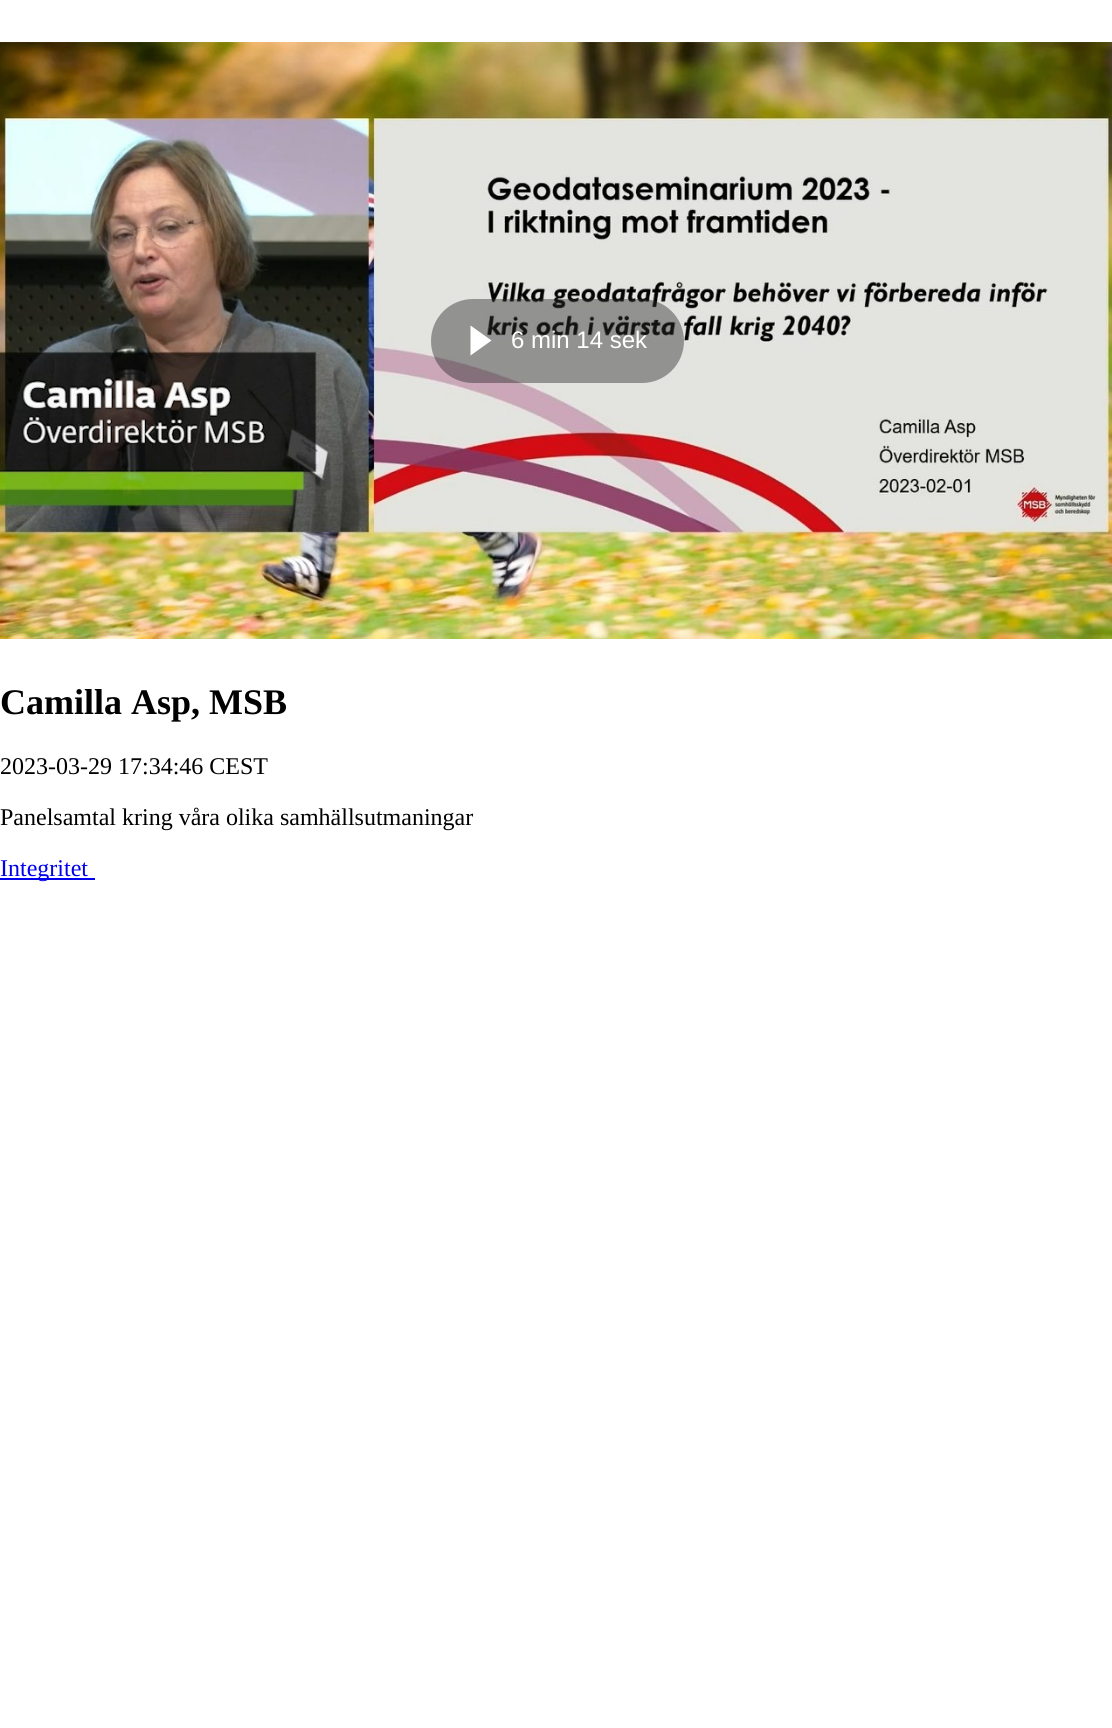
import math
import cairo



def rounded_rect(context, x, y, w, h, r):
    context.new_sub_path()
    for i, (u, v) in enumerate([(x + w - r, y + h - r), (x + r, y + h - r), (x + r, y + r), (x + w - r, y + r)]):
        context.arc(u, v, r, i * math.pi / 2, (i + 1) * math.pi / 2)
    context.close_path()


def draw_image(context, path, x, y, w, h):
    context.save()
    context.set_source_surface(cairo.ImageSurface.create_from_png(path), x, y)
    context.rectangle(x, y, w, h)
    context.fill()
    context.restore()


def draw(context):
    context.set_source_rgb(1, 1, 1)
    context.paint()
    draw_image(context, "images/1.png", 0, 42, 1112, 597)
    context.set_source_rgba(40 / 255, 40 / 255, 40 / 255, 0.43)
    rounded_rect(context, 431, 299, 253, 84, 42)
    context.fill()
    context.set_source_rgb(1, 1, 1)
    context.new_path()
    context.move_to(470.5, 325.5)
    context.line_to(470.5, 355.5)
    context.line_to(491.5, 340.5)
    context.close_path()
    context.fill()
    context.set_source_rgb(0, 0, 238 / 255)
    context.rectangle(0, 878, 95, 2)
    context.fill()
    context.select_font_face("Liberation Sans")
    context.set_font_size(24)
    context.set_source_rgb(1, 1, 1)
    context.move_to(511, 348)
    context.show_text("6 min 14 sek")
    context.select_font_face("Liberation Serif", cairo.FontSlant.NORMAL, cairo.FontWeight.BOLD)
    context.set_font_size(36)
    context.set_source_rgb(0, 0, 0)
    context.move_to(0, 714)
    context.show_text("Camilla Asp, MSB")
    context.select_font_face("Liberation Serif")
    context.set_font_size(24)
    context.move_to(0, 774)
    context.show_text("2023-03-29 17:34:46 CEST")
    context.move_to(0, 825)
    context.show_text("Panelsamtal kring våra olika samhällsutmaningar")
    context.set_source_rgb(0, 0, 238 / 255)
    context.move_to(0, 876)
    context.show_text("Integritet")


surface = cairo.ImageSurface(cairo.Format.RGB24, 1112, 1728)
context = cairo.Context(surface)
options = cairo.FontOptions()
options.set_hint_metrics(cairo.HintMetrics.OFF)
options.set_hint_style(cairo.HintStyle.NONE)
context.set_font_options(options)
context.set_miter_limit(4)
draw(context)
surface.write_to_png("out.png")
